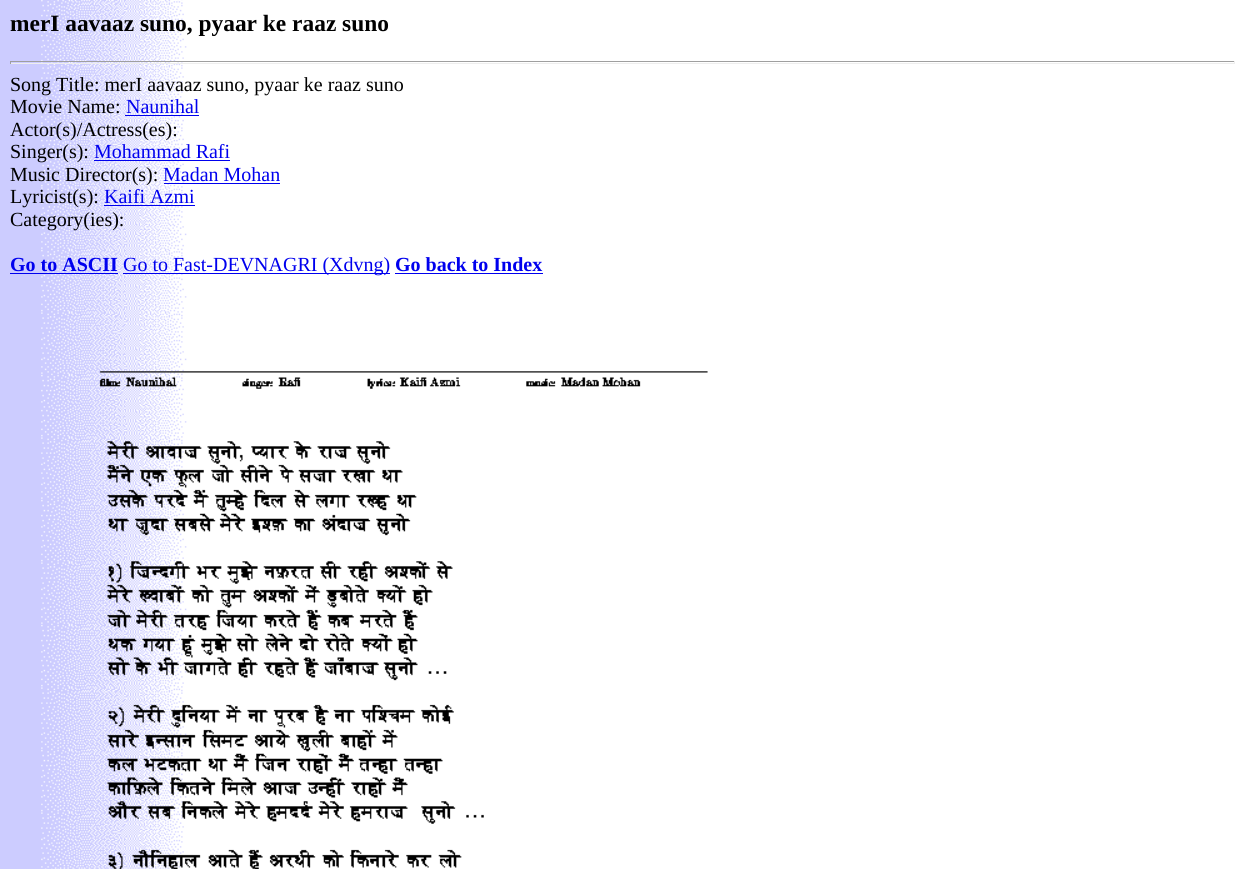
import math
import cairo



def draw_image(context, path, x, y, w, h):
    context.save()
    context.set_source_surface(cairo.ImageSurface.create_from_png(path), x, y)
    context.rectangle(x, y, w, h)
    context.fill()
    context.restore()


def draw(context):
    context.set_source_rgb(1, 1, 1)
    context.paint()
    draw_image(context, "images/1.png", 0, 0, 187, 869)
    context.set_source_rgb(159 / 255, 159 / 255, 159 / 255)
    context.rectangle(10, 61, 1225, 1)
    context.fill()
    context.set_source_rgb(238 / 255, 238 / 255, 238 / 255)
    context.rectangle(1234, 61, 1, 3)
    context.fill()
    context.rectangle(10, 63, 1225, 1)
    context.fill()
    context.set_source_rgb(159 / 255, 159 / 255, 159 / 255)
    context.rectangle(10, 61, 1, 3)
    context.fill()
    context.set_source_rgb(0, 0, 238 / 255)
    context.rectangle(125, 115, 74, 1)
    context.fill()
    context.rectangle(94, 160, 136, 1)
    context.fill()
    context.rectangle(164, 183, 116, 1)
    context.fill()
    context.rectangle(104, 205, 91, 1)
    context.fill()
    context.rectangle(10, 273, 108, 1)
    context.fill()
    context.rectangle(123, 273, 267, 1)
    context.fill()
    context.rectangle(395, 273, 148, 1)
    context.fill()
    draw_image(context, "images/2.png", 99, 371, 609, 498)
    context.select_font_face("Liberation Serif", cairo.FontSlant.NORMAL, cairo.FontWeight.BOLD)
    context.set_font_size(23.4)
    context.set_source_rgb(0, 0, 0)
    context.move_to(10, 31)
    context.show_text("merI aavaaz suno, pyaar ke raaz suno")
    context.select_font_face("Liberation Serif")
    context.set_font_size(20)
    context.move_to(10, 91)
    context.show_text("Song Title: merI aavaaz suno, pyaar ke raaz suno")
    context.move_to(10, 113)
    context.show_text("Movie Name:")
    context.set_source_rgb(0, 0, 238 / 255)
    context.move_to(126, 113)
    context.show_text("Naunihal")
    context.set_source_rgb(0, 0, 0)
    context.move_to(10, 136)
    context.show_text("Actor(s)/Actress(es):")
    context.move_to(10, 158)
    context.show_text("Singer(s):")
    context.set_source_rgb(0, 0, 238 / 255)
    context.move_to(94, 158)
    context.show_text("Mohammad Rafi")
    context.set_source_rgb(0, 0, 0)
    context.move_to(10, 181)
    context.show_text("Music Director(s):")
    context.set_source_rgb(0, 0, 238 / 255)
    context.move_to(163, 181)
    context.show_text("Madan Mohan")
    context.set_source_rgb(0, 0, 0)
    context.move_to(10, 203)
    context.show_text("Lyricist(s):")
    context.set_source_rgb(0, 0, 238 / 255)
    context.move_to(104, 203)
    context.show_text("Kaifi Azmi")
    context.set_source_rgb(0, 0, 0)
    context.move_to(10, 226)
    context.show_text("Category(ies):")
    context.select_font_face("Liberation Serif", cairo.FontSlant.NORMAL, cairo.FontWeight.BOLD)
    context.set_source_rgb(0, 0, 238 / 255)
    context.move_to(10, 271)
    context.show_text("Go to ASCII")
    context.select_font_face("Liberation Serif")
    context.move_to(123, 271)
    context.show_text("Go to Fast-DEVNAGRI (Xdvng)")
    context.select_font_face("Liberation Serif", cairo.FontSlant.NORMAL, cairo.FontWeight.BOLD)
    context.move_to(395, 271)
    context.show_text("Go back to Index")


surface = cairo.ImageSurface(cairo.Format.RGB24, 1245, 869)
context = cairo.Context(surface)
options = cairo.FontOptions()
options.set_hint_metrics(cairo.HintMetrics.OFF)
options.set_hint_style(cairo.HintStyle.NONE)
context.set_font_options(options)
context.set_miter_limit(4)
draw(context)
surface.write_to_png("out.png")
